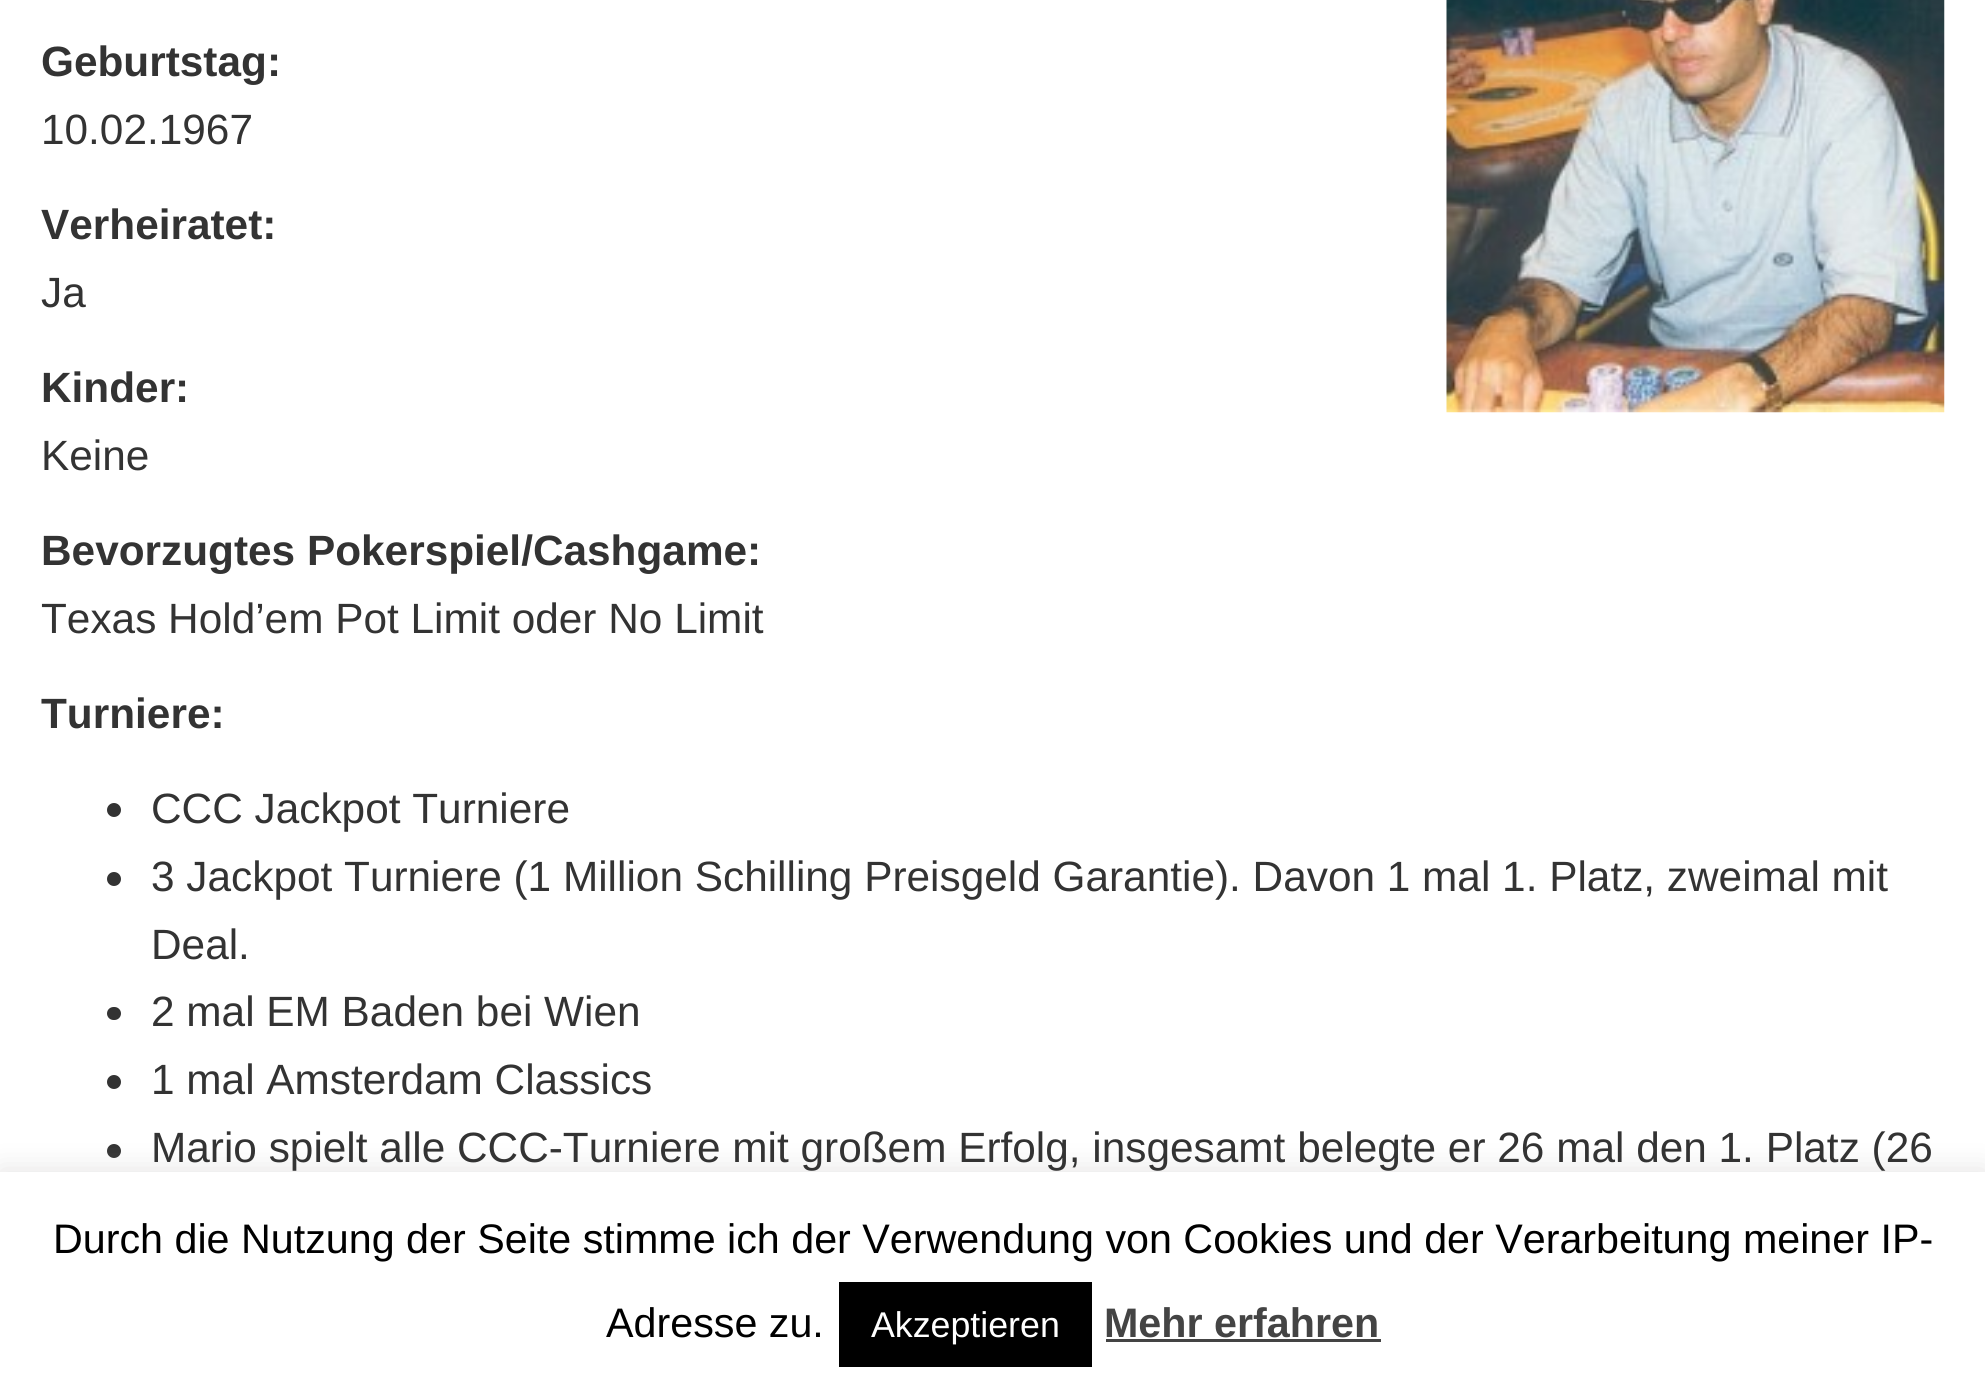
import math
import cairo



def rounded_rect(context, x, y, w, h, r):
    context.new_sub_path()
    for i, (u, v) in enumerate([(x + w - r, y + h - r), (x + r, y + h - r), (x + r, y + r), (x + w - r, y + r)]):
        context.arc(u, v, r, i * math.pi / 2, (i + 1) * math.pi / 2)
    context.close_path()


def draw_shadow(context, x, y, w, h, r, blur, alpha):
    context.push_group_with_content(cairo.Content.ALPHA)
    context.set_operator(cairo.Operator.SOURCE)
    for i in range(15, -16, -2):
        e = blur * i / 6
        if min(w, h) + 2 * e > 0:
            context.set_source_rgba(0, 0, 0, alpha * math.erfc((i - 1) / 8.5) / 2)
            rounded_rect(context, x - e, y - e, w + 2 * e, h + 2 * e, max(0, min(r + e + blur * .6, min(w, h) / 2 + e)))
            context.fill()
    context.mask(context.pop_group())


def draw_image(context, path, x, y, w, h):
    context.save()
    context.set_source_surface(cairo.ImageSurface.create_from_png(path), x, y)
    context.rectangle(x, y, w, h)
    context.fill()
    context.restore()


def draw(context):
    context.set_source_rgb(1, 1, 1)
    context.paint()
    draw_image(context, "images/1.png", 1446, 0, 499, 413)
    context.set_source_rgb(51 / 255, 51 / 255, 51 / 255)
    context.arc(114, 810, 7, 0, 2 * math.pi)
    context.fill()
    context.arc(114, 879, 7, 0, 2 * math.pi)
    context.fill()
    rounded_rect(context, 107, 1007, 14, 13, 6.5)
    context.fill()
    context.arc(114, 1082, 7, 0, 2 * math.pi)
    context.fill()
    context.arc(114, 1151, 7, 0, 2 * math.pi)
    context.fill()
    context.set_source_rgb(172 / 255, 171 / 255, 171 / 255)
    draw_shadow(context, 0, 1169, 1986, 228, 0, 14, 0.3)
    context.set_source_rgb(1, 1, 1)
    context.rectangle(0, 1172, 1985, 227)
    context.fill()
    context.set_source_rgb(0, 0, 0)
    context.rectangle(839, 1282, 253, 85)
    context.fill()
    context.set_source_rgb(68 / 255, 68 / 255, 68 / 255)
    context.rectangle(1106, 1339, 275, 3)
    context.fill()
    context.select_font_face("Liberation Sans", cairo.FontSlant.NORMAL, cairo.FontWeight.BOLD)
    context.set_font_size(42.35)
    context.set_source_rgb(51 / 255, 51 / 255, 51 / 255)
    context.move_to(41, 76)
    context.show_text("Geburtstag:")
    context.select_font_face("Liberation Sans")
    context.move_to(41, 144)
    context.show_text("10.02.1967")
    context.select_font_face("Liberation Sans", cairo.FontSlant.NORMAL, cairo.FontWeight.BOLD)
    context.move_to(41, 239)
    context.show_text("Verheiratet:")
    context.select_font_face("Liberation Sans")
    context.move_to(41, 307)
    context.show_text("Ja")
    context.select_font_face("Liberation Sans", cairo.FontSlant.NORMAL, cairo.FontWeight.BOLD)
    context.move_to(41, 402)
    context.show_text("Kinder:")
    context.select_font_face("Liberation Sans")
    context.move_to(41, 470)
    context.show_text("Keine")
    context.select_font_face("Liberation Sans", cairo.FontSlant.NORMAL, cairo.FontWeight.BOLD)
    context.move_to(41, 565)
    context.show_text("Bevorzugtes Pokerspiel/Cashgame:")
    context.select_font_face("Liberation Sans")
    context.move_to(41, 633)
    context.show_text("Texas Hold’em Pot Limit oder No Limit")
    context.select_font_face("Liberation Sans", cairo.FontSlant.NORMAL, cairo.FontWeight.BOLD)
    context.move_to(41, 728)
    context.show_text("Turniere:")
    context.select_font_face("Liberation Sans")
    context.move_to(151, 823)
    context.show_text("CCC Jackpot Turniere")
    context.move_to(151, 891)
    context.show_text("3 Jackpot Turniere (1 Million Schilling Preisgeld Garantie). Davon 1 mal 1. Platz, zweimal mit")
    context.move_to(151, 959)
    context.show_text("Deal.")
    context.move_to(151, 1026)
    context.show_text("2 mal EM Baden bei Wien")
    context.move_to(151, 1094)
    context.show_text("1 mal Amsterdam Classics")
    context.move_to(151, 1162)
    context.show_text("Mario spielt alle CCC-Turniere mit großem Erfolg, insgesamt belegte er 26 mal den 1. Platz (26")
    context.set_font_size(41.25)
    context.set_source_rgb(0, 0, 0)
    context.move_to(53, 1253)
    context.show_text("Durch die Nutzung der Seite stimme ich der Verwendung von Cookies und der Verarbeitung meiner IP-")
    context.move_to(606, 1337)
    context.show_text("Adresse zu.")
    context.set_font_size(35.75)
    context.set_source_rgb(1, 1, 1)
    context.move_to(871, 1337)
    context.show_text("Akzeptieren")
    context.select_font_face("Liberation Sans", cairo.FontSlant.NORMAL, cairo.FontWeight.BOLD)
    context.set_font_size(41.25)
    context.set_source_rgb(68 / 255, 68 / 255, 68 / 255)
    context.move_to(1104, 1337)
    context.show_text("Mehr erfahren")


surface = cairo.ImageSurface(cairo.Format.RGB24, 1985, 1399)
context = cairo.Context(surface)
options = cairo.FontOptions()
options.set_hint_metrics(cairo.HintMetrics.OFF)
options.set_hint_style(cairo.HintStyle.NONE)
context.set_font_options(options)
context.set_miter_limit(4)
draw(context)
surface.write_to_png("out.png")
